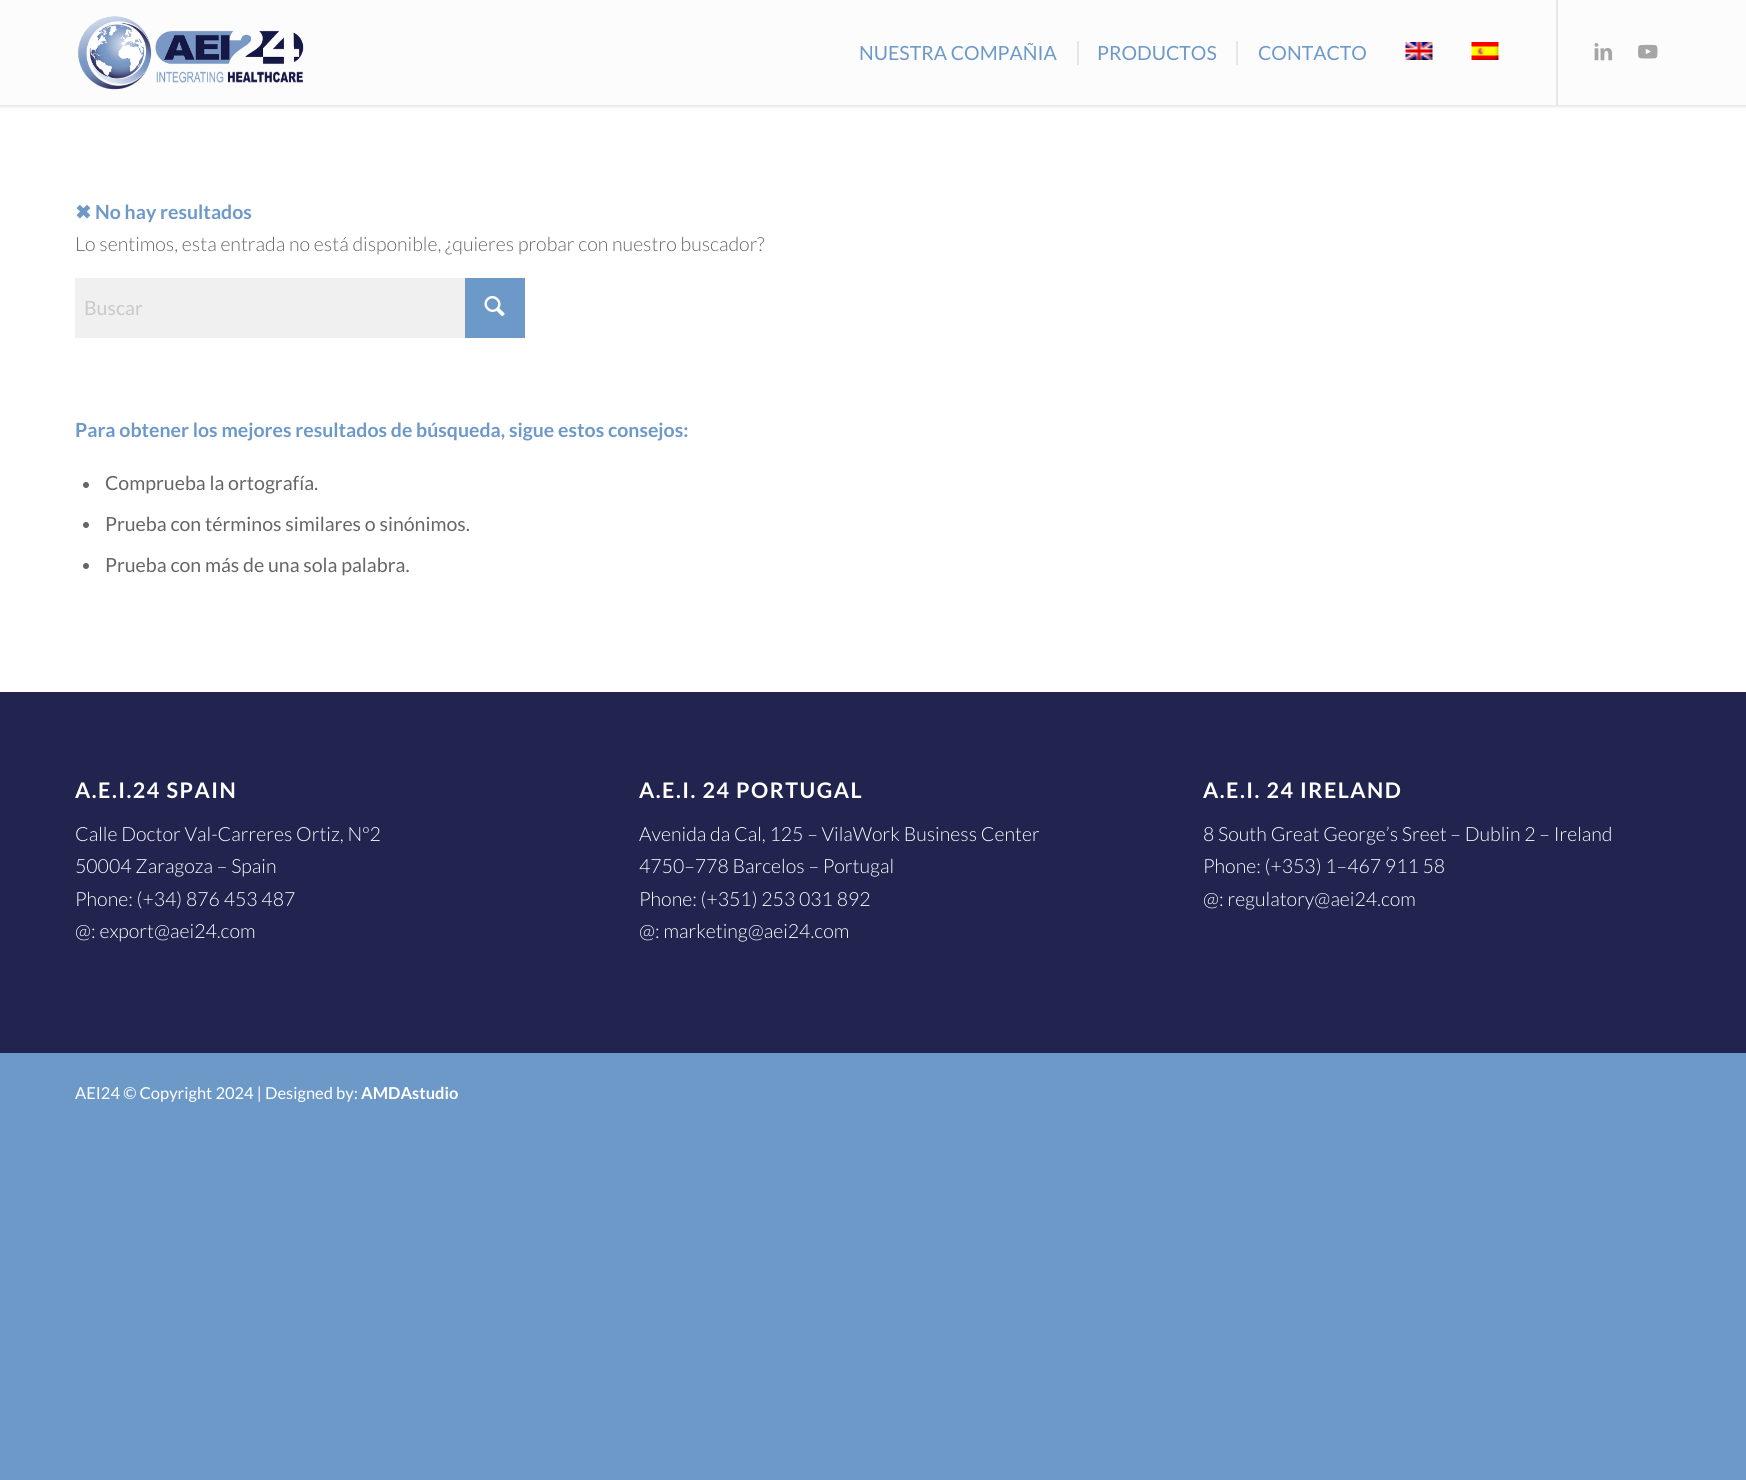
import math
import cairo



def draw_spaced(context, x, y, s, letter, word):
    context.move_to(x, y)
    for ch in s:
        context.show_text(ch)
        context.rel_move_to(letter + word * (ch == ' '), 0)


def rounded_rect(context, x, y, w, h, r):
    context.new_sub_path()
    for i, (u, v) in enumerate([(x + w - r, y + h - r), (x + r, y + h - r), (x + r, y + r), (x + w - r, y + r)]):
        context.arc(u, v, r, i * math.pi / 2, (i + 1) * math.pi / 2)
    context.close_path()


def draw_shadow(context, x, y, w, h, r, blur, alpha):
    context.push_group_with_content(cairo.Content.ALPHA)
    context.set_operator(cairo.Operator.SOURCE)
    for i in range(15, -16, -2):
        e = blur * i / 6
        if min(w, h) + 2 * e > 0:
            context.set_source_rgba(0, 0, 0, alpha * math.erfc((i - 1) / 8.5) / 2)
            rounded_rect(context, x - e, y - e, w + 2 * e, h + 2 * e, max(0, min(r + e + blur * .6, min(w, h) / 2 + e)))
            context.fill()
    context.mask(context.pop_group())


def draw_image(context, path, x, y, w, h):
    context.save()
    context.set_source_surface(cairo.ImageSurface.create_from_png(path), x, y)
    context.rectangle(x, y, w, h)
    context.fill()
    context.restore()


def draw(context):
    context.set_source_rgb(109 / 255, 153 / 255, 201 / 255)
    context.paint()
    context.set_source_rgb(252 / 255, 252 / 255, 252 / 255)
    context.rectangle(0, 0, 1746, 105)
    context.fill()
    context.set_source_rgb(1, 1, 1)
    context.rectangle(0, 105, 1746, 587)
    context.fill()
    context.save()
    context.rectangle(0, 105, 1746, 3)
    context.clip()
    context.set_source_rgb(0, 0, 0)
    draw_shadow(context, -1, -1, 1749, 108, 0, 1.5, 0.1)
    context.restore()
    draw_image(context, "images/1.png", 78, 16, 226, 74)
    context.set_source_rgb(230 / 255, 230 / 255, 230 / 255)
    context.rectangle(1556, 0, 2, 105)
    context.fill()
    context.rectangle(1077, 41, 2, 24)
    context.fill()
    context.rectangle(1236, 41, 2, 24)
    context.fill()
    draw_image(context, "images/2.png", 1405, 42, 28, 18)
    draw_image(context, "images/3.png", 1471, 42, 28, 18)
    draw_image(context, "images/4.png", 1594, 43, 19, 18)
    draw_image(context, "images/5.png", 1638, 44, 20, 15)
    context.set_source_rgb(240 / 255, 240 / 255, 240 / 255)
    context.rectangle(75, 278, 390, 60)
    context.fill()
    context.set_source_rgb(109 / 255, 153 / 255, 201 / 255)
    context.rectangle(465, 278, 60, 60)
    context.fill()
    draw_image(context, "images/6.png", 484, 296, 21, 21)
    context.set_source_rgb(102 / 255, 102 / 255, 102 / 255)
    context.arc(86, 485, 3, 0, 2 * math.pi)
    context.fill()
    context.arc(86, 525, 3, 0, 2 * math.pi)
    context.fill()
    context.arc(86, 566, 3, 0, 2 * math.pi)
    context.fill()
    context.set_source_rgb(33 / 255, 36 / 255, 79 / 255)
    context.rectangle(0, 692, 1746, 361)
    context.fill()
    context.select_font_face("Lato")
    context.set_font_size(19.5)
    context.set_source_rgb(109 / 255, 153 / 255, 201 / 255)
    context.move_to(859, 60)
    context.show_text("NUESTRA COMPAÑIA")
    context.move_to(1097, 60)
    context.show_text("PRODUCTOS")
    context.move_to(1258, 60)
    context.show_text("CONTACTO")
    context.select_font_face("DejaVu Sans", cairo.FontSlant.NORMAL, cairo.FontWeight.BOLD)
    context.move_to(75, 219)
    context.show_text("✖")
    context.select_font_face("Lato", cairo.FontSlant.NORMAL, cairo.FontWeight.BOLD)
    context.move_to(95, 219)
    context.show_text("No hay resultados")
    context.select_font_face("Lato Light")
    context.set_source_rgb(102 / 255, 102 / 255, 102 / 255)
    context.move_to(75, 251)
    context.show_text("Lo sentimos, esta entrada no está disponible, ¿quieres probar con nuestro buscador?")
    context.select_font_face("Lato")
    context.set_source_rgb(201 / 255, 201 / 255, 201 / 255)
    context.move_to(84, 315)
    context.show_text("Buscar")
    context.select_font_face("Lato", cairo.FontSlant.NORMAL, cairo.FontWeight.BOLD)
    context.set_source_rgb(109 / 255, 153 / 255, 201 / 255)
    context.move_to(75, 437)
    context.show_text("Para obtener los mejores resultados de búsqueda, sigue estos consejos:")
    context.select_font_face("Lato")
    context.set_source_rgb(102 / 255, 102 / 255, 102 / 255)
    context.move_to(105, 490)
    context.show_text("Comprueba la ortografía.")
    context.move_to(105, 531)
    context.show_text("Prueba con términos similares o sinónimos.")
    context.move_to(105, 572)
    context.show_text("Prueba con más de una sola palabra.")
    context.select_font_face("Lato", cairo.FontSlant.NORMAL, cairo.FontWeight.BOLD)
    context.set_font_size(21.5)
    context.set_source_rgb(1, 1, 1)
    draw_spaced(context, 75, 798, "A.E.I.24 SPAIN", 1.5, 0)
    context.select_font_face("Lato Light")
    context.set_font_size(19.5)
    context.move_to(75, 841)
    context.show_text("Calle Doctor Val-Carreres Ortiz, Nº2")
    context.move_to(75, 873)
    context.show_text("50004 Zaragoza – Spain")
    context.move_to(75, 906)
    context.show_text("Phone: (+34) 876 453 487")
    context.move_to(75, 938)
    context.show_text("@: export@aei24.com")
    context.select_font_face("Lato", cairo.FontSlant.NORMAL, cairo.FontWeight.BOLD)
    context.set_font_size(21.5)
    draw_spaced(context, 639, 798, "A.E.I. 24 PORTUGAL", 1.5, 0)
    context.select_font_face("Lato Light")
    context.set_font_size(19.5)
    context.move_to(639, 841)
    context.show_text("Avenida da Cal, 125 – VilaWork Business Center")
    context.move_to(639, 873)
    context.show_text("4750–778 Barcelos – Portugal")
    context.move_to(639, 906)
    context.show_text("Phone: (+351) 253 031 892")
    context.move_to(639, 938)
    context.show_text("@: marketing@aei24.com")
    context.select_font_face("Lato", cairo.FontSlant.NORMAL, cairo.FontWeight.BOLD)
    context.set_font_size(21.5)
    draw_spaced(context, 1203, 798, "A.E.I. 24 IRELAND", 1.5, 0)
    context.select_font_face("Lato Light")
    context.set_font_size(19.5)
    context.move_to(1203, 841)
    context.show_text("8 South Great George’s Sreet – Dublin 2 – Ireland")
    context.move_to(1203, 873)
    context.show_text("Phone: (+353) 1–467 911 58")
    context.move_to(1203, 906)
    context.show_text("@: regulatory@aei24.com")
    context.select_font_face("Lato")
    context.set_font_size(16.5)
    context.move_to(75, 1099)
    context.show_text("AEI24 © Copyright 2024 | Designed by:")
    context.select_font_face("Lato", cairo.FontSlant.NORMAL, cairo.FontWeight.BOLD)
    context.move_to(361, 1099)
    context.show_text("AMDAstudio")


surface = cairo.ImageSurface(cairo.Format.RGB24, 1746, 1480)
context = cairo.Context(surface)
options = cairo.FontOptions()
options.set_hint_metrics(cairo.HintMetrics.OFF)
options.set_hint_style(cairo.HintStyle.NONE)
context.set_font_options(options)
context.set_miter_limit(4)
draw(context)
surface.write_to_png("out.png")
